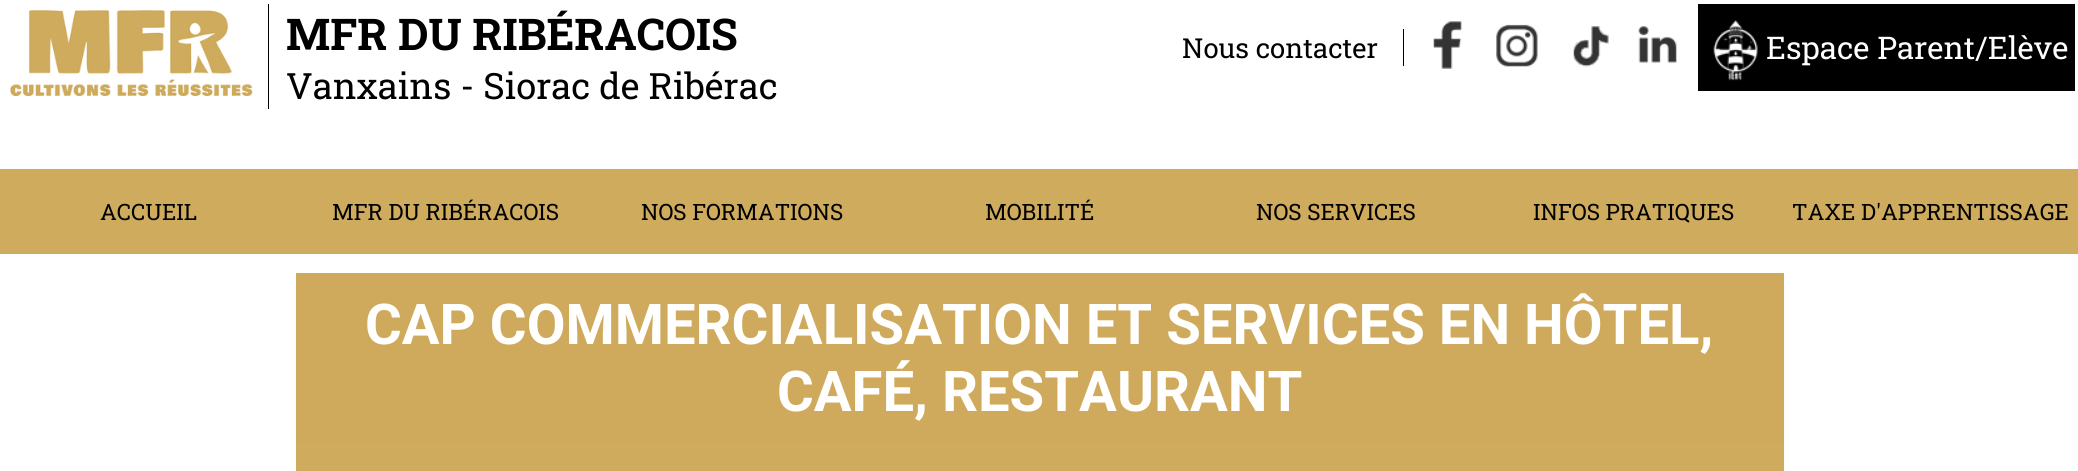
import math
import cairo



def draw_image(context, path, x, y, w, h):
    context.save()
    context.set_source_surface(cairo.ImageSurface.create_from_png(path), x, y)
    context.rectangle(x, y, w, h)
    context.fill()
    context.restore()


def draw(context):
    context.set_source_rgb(1, 1, 1)
    context.paint()
    draw_image(context, "images/1.png", 10, 10, 243, 86)
    context.set_source_rgb(0, 0, 0)
    context.rectangle(268, 4, 1, 105)
    context.fill()
    context.rectangle(1403, 29, 1, 37)
    context.fill()
    draw_image(context, "images/2.png", 1433, 21, 29, 48)
    draw_image(context, "images/3.png", 1496, 24, 42, 43)
    draw_image(context, "images/4.png", 1573, 26, 36, 41)
    draw_image(context, "images/5.png", 1638, 26, 39, 37)
    context.rectangle(1698, 4, 377, 87)
    context.fill()
    draw_image(context, "images/6.png", 1713, 20, 45, 61)
    context.set_source_rgb(206 / 255, 171 / 255, 93 / 255)
    context.rectangle(0, 169, 2078, 85)
    context.fill()
    context.set_source_rgb(207 / 255, 170 / 255, 92 / 255)
    context.rectangle(296, 273, 1488, 170)
    context.fill()
    context.set_source_rgb(207 / 255, 171 / 255, 93 / 255)
    context.rectangle(296, 443, 1488, 28)
    context.fill()
    context.select_font_face("Roboto Slab", cairo.FontSlant.NORMAL, cairo.FontWeight.BOLD)
    context.set_font_size(43.75)
    context.set_source_rgb(0, 0, 0)
    context.move_to(286, 50)
    context.show_text("MFR DU RIBÉRACOIS")
    context.select_font_face("Roboto Slab")
    context.set_font_size(36.25)
    context.move_to(286, 99)
    context.show_text("Vanxains - Siorac de Ribérac")
    context.set_font_size(27.5)
    context.move_to(1182, 58)
    context.show_text("Nous contacter")
    context.set_font_size(31.25)
    context.set_source_rgb(1, 1, 1)
    context.move_to(1766, 59)
    context.show_text("Espace Parent/Elève")
    context.set_font_size(22.5)
    context.set_source_rgb(0, 0, 0)
    context.move_to(100, 220)
    context.show_text("ACCUEIL")
    context.move_to(332, 220)
    context.show_text("MFR DU RIBÉRACOIS")
    context.move_to(641, 220)
    context.show_text("NOS FORMATIONS")
    context.move_to(985, 220)
    context.show_text("MOBILITÉ")
    context.move_to(1256, 220)
    context.show_text("NOS SERVICES")
    context.move_to(1533, 220)
    context.show_text("INFOS PRATIQUES")
    context.move_to(1792, 220)
    context.show_text("TAXE D'APPRENTISSAGE")
    context.select_font_face("Roboto", cairo.FontSlant.NORMAL, cairo.FontWeight.BOLD)
    context.set_font_size(56.25)
    context.set_source_rgb(1, 1, 1)
    context.move_to(365, 344)
    context.show_text("CAP COMMERCIALISATION ET SERVICES EN HÔTEL,")
    context.move_to(777, 411)
    context.show_text("CAFÉ, RESTAURANT")


surface = cairo.ImageSurface(cairo.Format.RGB24, 2078, 471)
context = cairo.Context(surface)
options = cairo.FontOptions()
options.set_hint_metrics(cairo.HintMetrics.OFF)
options.set_hint_style(cairo.HintStyle.NONE)
context.set_font_options(options)
context.set_miter_limit(4)
draw(context)
surface.write_to_png("out.png")
